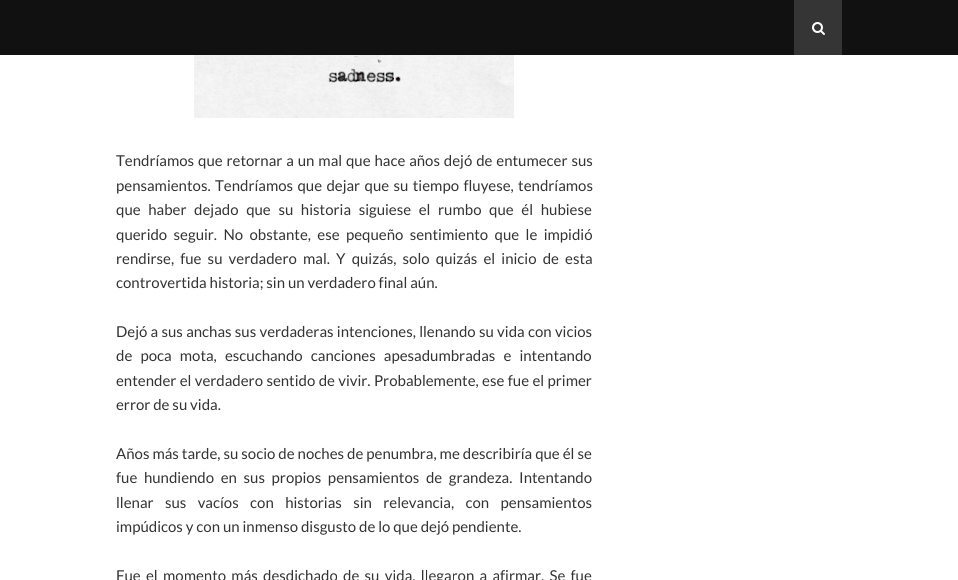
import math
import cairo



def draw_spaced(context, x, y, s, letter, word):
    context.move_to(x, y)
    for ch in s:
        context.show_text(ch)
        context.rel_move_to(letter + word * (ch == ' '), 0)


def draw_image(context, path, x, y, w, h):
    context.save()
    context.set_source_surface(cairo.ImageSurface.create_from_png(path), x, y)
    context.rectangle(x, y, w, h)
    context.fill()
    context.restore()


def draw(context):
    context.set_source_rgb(1, 1, 1)
    context.paint()
    context.set_source_rgb(17 / 255, 17 / 255, 17 / 255)
    context.rectangle(0, 0, 958, 55)
    context.fill()
    context.set_source_rgb(53 / 255, 53 / 255, 53 / 255)
    context.rectangle(794, 0, 48, 55)
    context.fill()
    draw_image(context, "images/1.png", 812, 22, 13, 13)
    draw_image(context, "images/2.png", 194, 55, 320, 63)
    context.select_font_face("Lato")
    context.set_font_size(15)
    context.set_source_rgb(51 / 255, 51 / 255, 51 / 255)
    draw_spaced(context, 116, 166, "Tendríamos que retornar a un mal que hace años dejó de entumecer sus", 0, 1)
    draw_spaced(context, 116, 191, "pensamientos. Tendríamos que dejar que su tiempo fluyese, tendríamos", 0, 1.5)
    draw_spaced(context, 116, 215, "que haber dejado que su historia siguiese el rumbo que él hubiese", 0, 4.75)
    draw_spaced(context, 116, 240, "querido seguir. No obstante, ese pequeño sentimiento que le impidió", 0, 3.5)
    draw_spaced(context, 116, 264, "rendirse, fue su verdadero mal. Y quizás, solo quizás el inicio de esta", 0, 3.25)
    context.move_to(116, 288)
    context.show_text("controvertida historia; sin un verdadero final aún.")
    draw_spaced(context, 116, 337, "Dejó a sus anchas sus verdaderas intenciones, llenando su vida con vicios", 0, 0.4)
    draw_spaced(context, 116, 361, "de poca mota, escuchando canciones apesadumbradas e intentando", 0, 5.25)
    draw_spaced(context, 116, 386, "entender el verdadero sentido de vivir. Probablemente, ese fue el primer", 0, 0.5)
    context.move_to(116, 410)
    context.show_text("error de su vida.")
    draw_spaced(context, 116, 459, "Años más tarde, su socio de noches de penumbra, me describiría que él se", 0, 0.1)
    draw_spaced(context, 116, 483, "fue hundiendo en sus propios pensamientos de grandeza. Intentando", 0, 3.75)
    draw_spaced(context, 116, 508, "llenar sus vacíos con historias sin relevancia, con pensamientos", 0, 8.5)
    context.move_to(116, 532)
    context.show_text("impúdicos y con un inmenso disgusto de lo que dejó pendiente.")
    draw_spaced(context, 116, 581, "Fue el momento más desdichado de su vida, llegaron a afirmar. Se fue", 0, 2.4)


surface = cairo.ImageSurface(cairo.Format.RGB24, 958, 580)
context = cairo.Context(surface)
options = cairo.FontOptions()
options.set_hint_metrics(cairo.HintMetrics.OFF)
options.set_hint_style(cairo.HintStyle.NONE)
context.set_font_options(options)
context.set_miter_limit(4)
draw(context)
surface.write_to_png("out.png")
